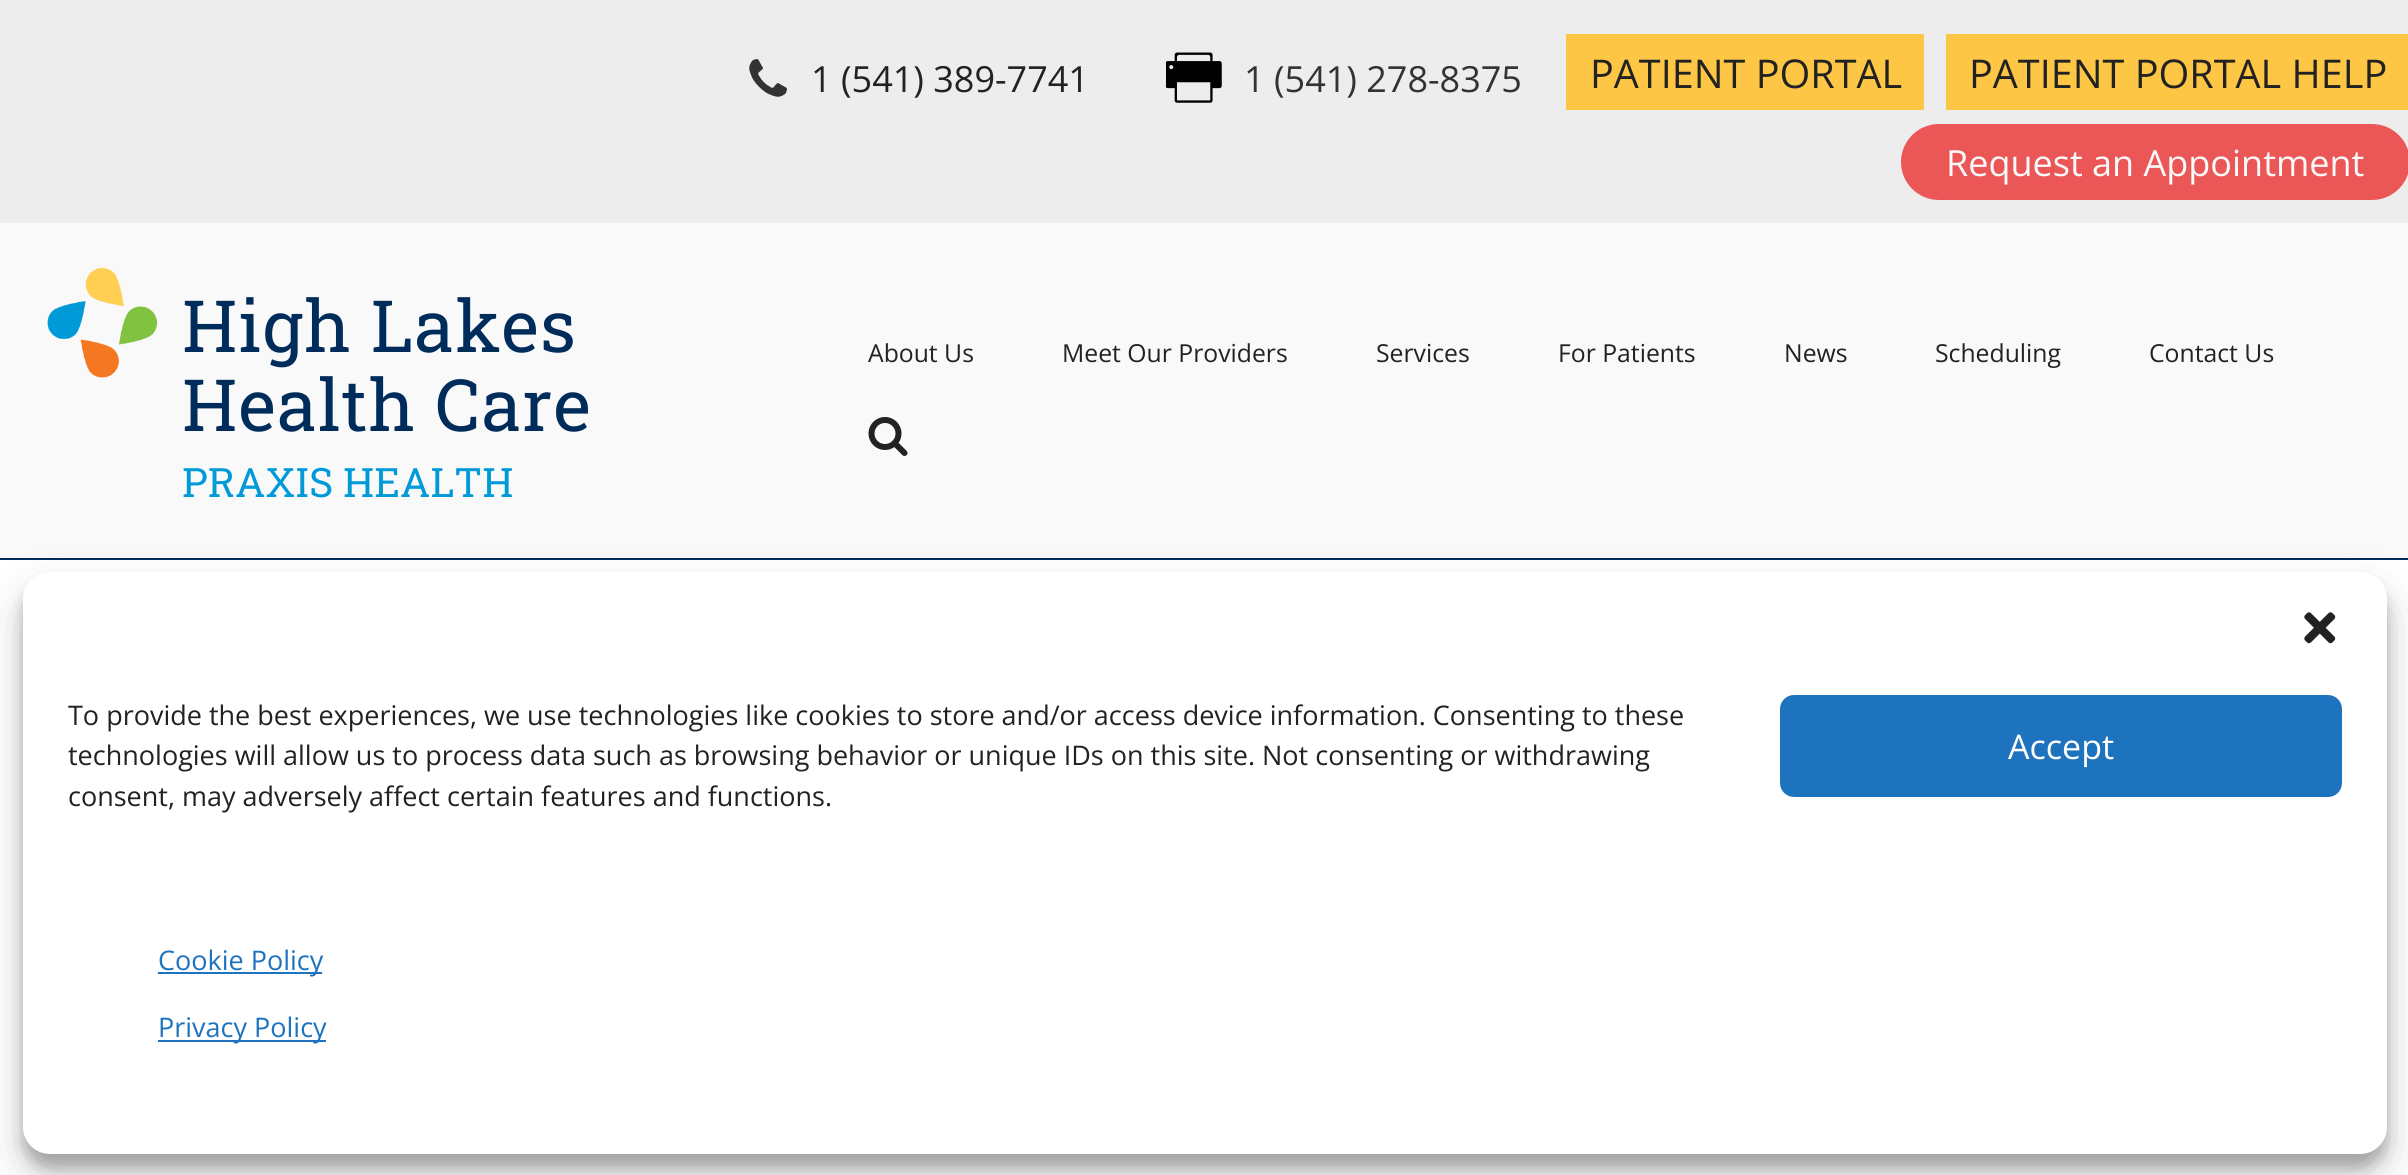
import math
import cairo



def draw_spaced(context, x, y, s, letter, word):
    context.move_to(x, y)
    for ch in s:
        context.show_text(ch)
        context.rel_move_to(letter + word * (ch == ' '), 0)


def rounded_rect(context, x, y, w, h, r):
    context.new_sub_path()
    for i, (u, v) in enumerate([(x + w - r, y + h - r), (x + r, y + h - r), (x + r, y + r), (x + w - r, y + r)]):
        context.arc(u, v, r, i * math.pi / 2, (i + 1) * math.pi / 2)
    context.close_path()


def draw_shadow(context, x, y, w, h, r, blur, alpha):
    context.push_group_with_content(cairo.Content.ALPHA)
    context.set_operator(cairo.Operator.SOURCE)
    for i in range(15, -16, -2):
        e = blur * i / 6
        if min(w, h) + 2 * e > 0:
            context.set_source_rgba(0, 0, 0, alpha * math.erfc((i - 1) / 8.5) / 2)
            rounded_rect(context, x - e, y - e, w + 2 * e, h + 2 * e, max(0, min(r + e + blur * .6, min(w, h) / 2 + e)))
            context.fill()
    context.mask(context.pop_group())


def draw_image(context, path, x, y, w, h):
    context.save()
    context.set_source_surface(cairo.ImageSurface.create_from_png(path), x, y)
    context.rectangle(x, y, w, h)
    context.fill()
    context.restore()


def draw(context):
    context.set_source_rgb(1, 1, 1)
    context.paint()
    context.set_source_rgb(0, 44 / 255, 91 / 255)
    context.rectangle(0, 558, 2408, 2)
    context.fill()
    context.set_source_rgb(249 / 255, 249 / 255, 249 / 255)
    context.rectangle(0, 223, 2408, 335)
    context.fill()
    context.set_source_rgb(238 / 255, 237 / 255, 237 / 255)
    context.rectangle(0, 0, 2408, 223)
    context.fill()
    draw_image(context, "images/1.png", 749, 59, 38, 38)
    draw_image(context, "images/2.png", 1166, 52, 56, 51)
    context.set_source_rgb(253 / 255, 198 / 255, 69 / 255)
    context.rectangle(1566, 34, 358, 76)
    context.fill()
    context.rectangle(1946, 34, 462, 76)
    context.fill()
    context.set_source_rgb(235 / 255, 87 / 255, 87 / 255)
    rounded_rect(context, 1901, 124, 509, 76, 38)
    context.fill()
    draw_image(context, "images/3.png", 47, 267, 111, 111)
    draw_image(context, "images/4.png", 868, 417, 40, 39)
    context.set_source_rgb(0, 0, 0)
    draw_shadow(context, 23, 585, 2364, 583, 27, 7, 0.23)
    draw_shadow(context, 23, 594, 2364, 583, 27, 22.5, 0.19)
    context.set_source_rgb(1, 1, 1)
    rounded_rect(context, 23, 572, 2364, 582, 27)
    context.fill()
    draw_image(context, "images/5.png", 2304, 612, 32, 32)
    context.set_source_rgb(30 / 255, 115 / 255, 190 / 255)
    rounded_rect(context, 1781, 696, 560, 100, 13)
    context.fill_preserve()
    context.stroke()
    context.rectangle(158, 972, 164, 2)
    context.fill()
    context.rectangle(158, 1040, 168, 2)
    context.fill()
    context.select_font_face("Open Sans")
    context.set_font_size(36)
    context.set_source_rgb(34 / 255, 34 / 255, 34 / 255)
    context.move_to(811, 92)
    context.show_text("1 (541) 389-7741")
    context.set_source_rgb(51 / 255, 51 / 255, 51 / 255)
    context.move_to(1244, 92)
    context.show_text("1 (541) 278-8375")
    context.set_font_size(39.6)
    context.set_source_rgb(34 / 255, 34 / 255, 34 / 255)
    context.move_to(1590, 88)
    context.show_text("PATIENT PORTAL")
    context.move_to(1969, 88)
    context.show_text("PATIENT PORTAL HELP")
    context.set_font_size(36)
    context.set_source_rgb(249 / 255, 249 / 255, 249 / 255)
    context.move_to(1946, 176)
    context.show_text("Request an Appointment")
    context.select_font_face("Roboto Slab")
    context.set_font_size(72)
    context.set_source_rgb(0, 44 / 255, 91 / 255)
    draw_spaced(context, 182, 352, "High Lakes", 1.1, 0)
    draw_spaced(context, 182, 431, "Health Care", 1.1, 0)
    context.set_font_size(40.5)
    context.set_source_rgb(0, 154 / 255, 217 / 255)
    context.move_to(182, 497)
    context.show_text("PRAXIS HEALTH")
    context.select_font_face("Open Sans")
    context.set_font_size(24.75)
    context.set_source_rgb(34 / 255, 34 / 255, 34 / 255)
    context.move_to(868, 362)
    context.show_text("About Us")
    context.move_to(1062, 362)
    context.show_text("Meet Our Providers")
    context.move_to(1376, 362)
    context.show_text("Services")
    context.move_to(1558, 362)
    context.show_text("For Patients")
    context.move_to(1784, 362)
    context.show_text("News")
    context.move_to(1935, 362)
    context.show_text("Scheduling")
    context.move_to(2149, 362)
    context.show_text("Contact Us")
    context.save()
    context.rectangle(68, 695, 1689, 133)
    context.clip()
    context.set_font_size(27)
    context.move_to(68, 725)
    context.show_text("To provide the best experiences, we use technologies like cookies to store and/or access device information. Consenting to these")
    context.restore()
    context.set_font_size(27)
    context.move_to(68, 765)
    context.show_text("technologies will allow us to process data such as browsing behavior or unique IDs on this site. Not consenting or withdrawing")
    context.move_to(68, 806)
    context.show_text("consent, may adversely affect certain features and functions.")
    context.set_font_size(34)
    context.set_source_rgb(1, 1, 1)
    context.move_to(2008, 759)
    context.show_text("Accept")
    context.set_font_size(27)
    context.set_source_rgb(30 / 255, 115 / 255, 190 / 255)
    context.move_to(158, 970)
    context.show_text("Cookie Policy")
    context.move_to(158, 1037)
    context.show_text("Privacy Policy")


surface = cairo.ImageSurface(cairo.Format.RGB24, 2408, 1175)
context = cairo.Context(surface)
options = cairo.FontOptions()
options.set_hint_metrics(cairo.HintMetrics.OFF)
options.set_hint_style(cairo.HintStyle.NONE)
context.set_font_options(options)
context.set_miter_limit(4)
draw(context)
surface.write_to_png("out.png")
